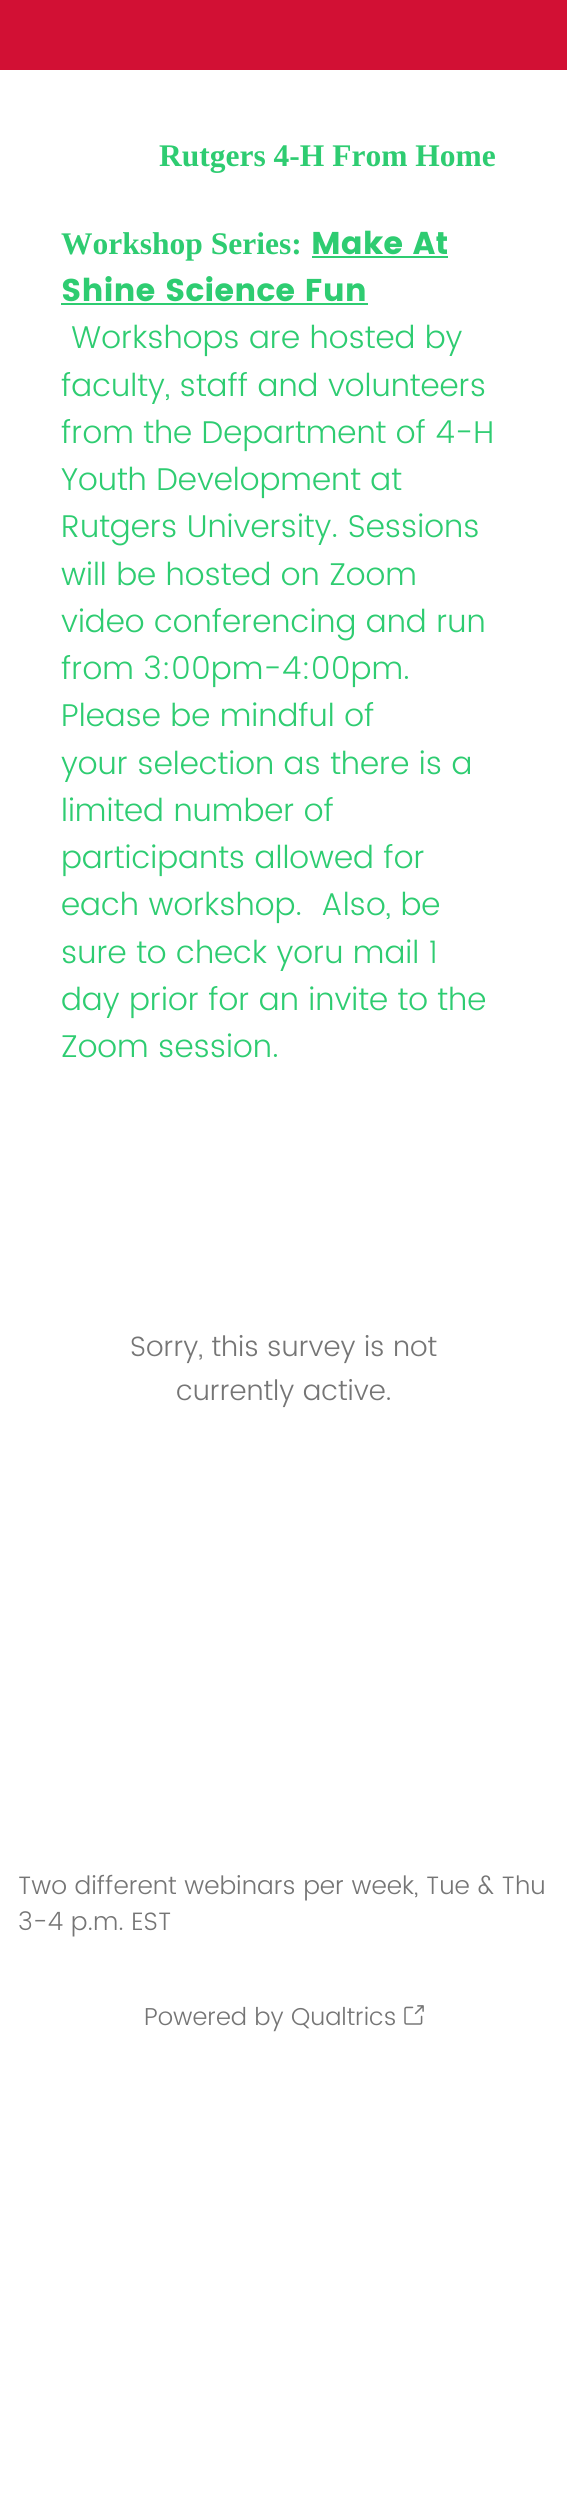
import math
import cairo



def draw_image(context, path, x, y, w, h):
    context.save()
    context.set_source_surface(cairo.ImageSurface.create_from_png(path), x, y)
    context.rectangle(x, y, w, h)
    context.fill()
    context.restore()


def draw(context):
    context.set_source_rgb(1, 1, 1)
    context.paint()
    context.set_source_rgb(210 / 255, 16 / 255, 52 / 255)
    context.rectangle(0, 0, 567, 70)
    context.fill()
    context.set_source_rgb(46 / 255, 204 / 255, 113 / 255)
    context.rectangle(312, 256, 136, 2)
    context.fill()
    context.rectangle(61, 303, 307, 2)
    context.fill()
    draw_image(context, "images/1.png", 404, 2005, 20, 20)
    context.select_font_face("Liberation Serif", cairo.FontSlant.NORMAL, cairo.FontWeight.BOLD)
    context.set_font_size(31.5)
    context.move_to(159, 166)
    context.show_text("Rutgers 4-H From Home")
    context.move_to(61, 254)
    context.show_text("Workshop Series:")
    context.select_font_face("Poppins", cairo.FontSlant.NORMAL, cairo.FontWeight.BOLD)
    context.move_to(311, 254)
    context.show_text("Make At")
    context.move_to(61, 301)
    context.show_text("Shine Science Fun")
    context.select_font_face("Poppins Light")
    context.move_to(71, 348)
    context.show_text("Workshops are hosted by")
    context.move_to(61, 396)
    context.show_text("faculty, staff and volunteers")
    context.move_to(61, 443)
    context.show_text("from the Department of 4-H")
    context.move_to(61, 490)
    context.show_text("Youth Development at")
    context.move_to(61, 537)
    context.show_text("Rutgers University. Sessions")
    context.move_to(61, 585)
    context.show_text("will be hosted on Zoom")
    context.move_to(61, 632)
    context.show_text("video conferencing and run")
    context.move_to(61, 679)
    context.show_text("from 3:00pm-4:00pm.")
    context.move_to(61, 726)
    context.show_text("Please be mindful of")
    context.move_to(61, 774)
    context.show_text("your selection as there is a")
    context.move_to(61, 821)
    context.show_text("limited number of")
    context.move_to(61, 868)
    context.show_text("participants allowed for")
    context.move_to(61, 915)
    context.show_text("each workshop.  Also, be")
    context.move_to(61, 963)
    context.show_text("sure to check yoru mail 1")
    context.move_to(61, 1010)
    context.show_text("day prior for an invite to the")
    context.move_to(61, 1057)
    context.show_text("Zoom session.")
    context.set_font_size(28)
    context.set_source_rgb(117 / 255, 117 / 255, 117 / 255)
    context.move_to(130, 1356)
    context.show_text("Sorry, this survey is not")
    context.move_to(176, 1400)
    context.show_text("currently active.")
    context.set_font_size(25.2)
    context.move_to(18, 1894)
    context.show_text("Two different webinars per week, Tue & Thu")
    context.move_to(18, 1930)
    context.show_text("3-4 p.m. EST")
    context.set_font_size(24.5)
    context.move_to(144, 2025)
    context.show_text("Powered by Qualtrics")


surface = cairo.ImageSurface(cairo.Format.RGB24, 567, 2511)
context = cairo.Context(surface)
options = cairo.FontOptions()
options.set_hint_metrics(cairo.HintMetrics.OFF)
options.set_hint_style(cairo.HintStyle.NONE)
context.set_font_options(options)
context.set_miter_limit(4)
draw(context)
surface.write_to_png("out.png")
